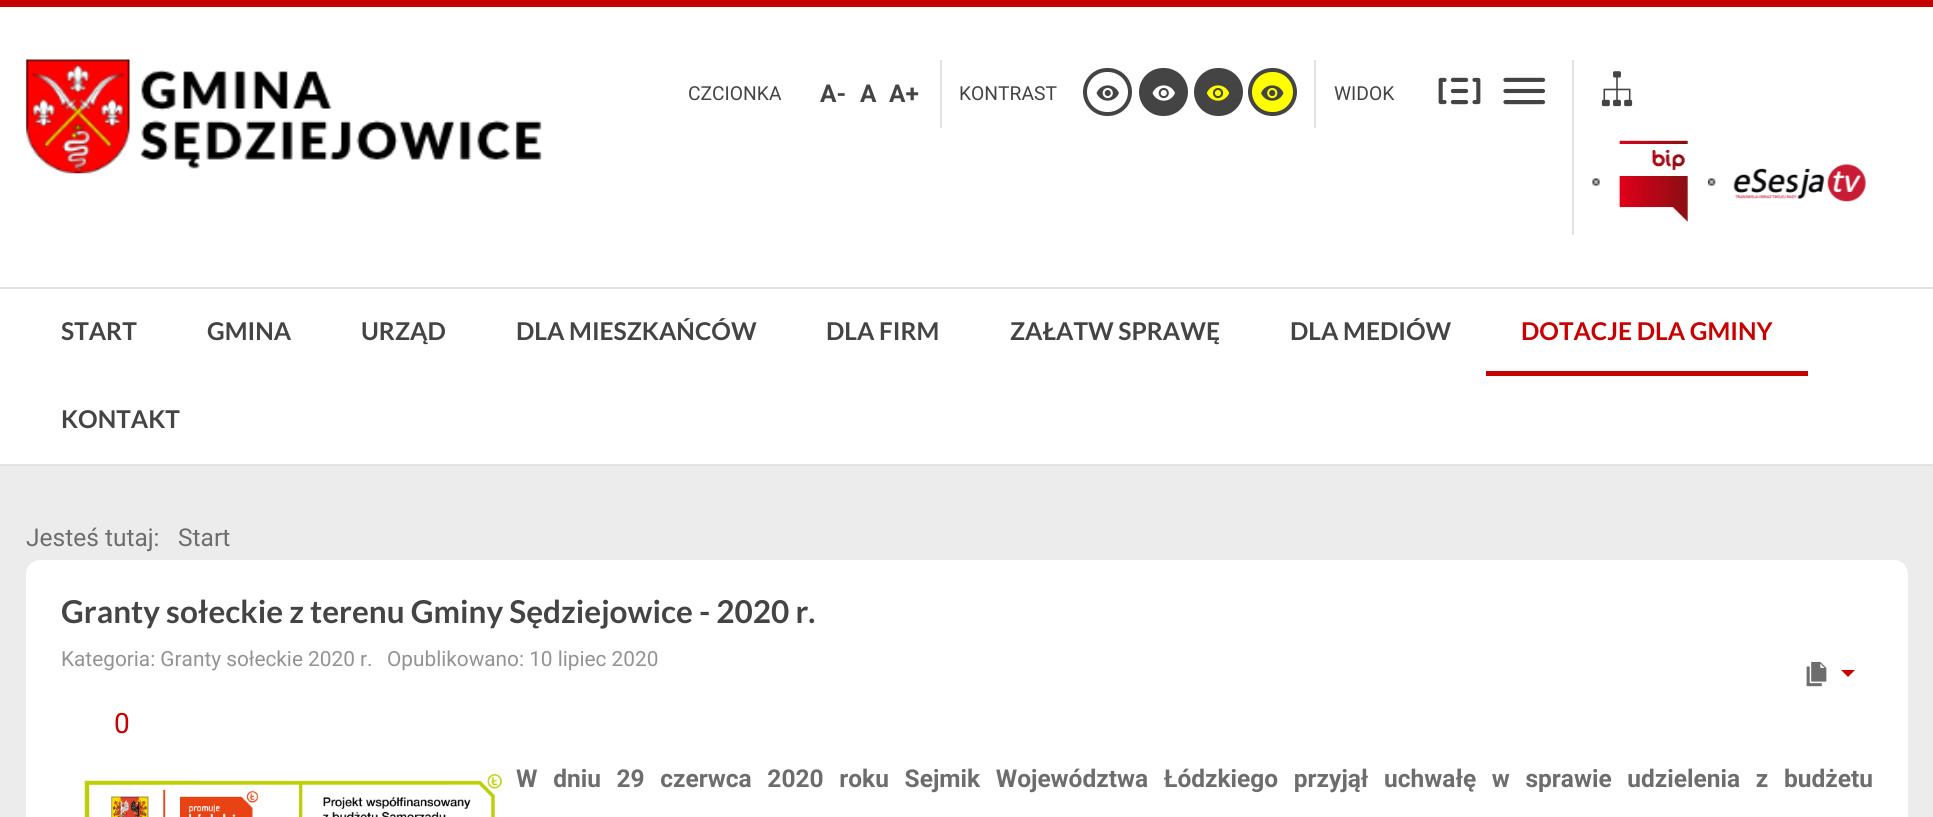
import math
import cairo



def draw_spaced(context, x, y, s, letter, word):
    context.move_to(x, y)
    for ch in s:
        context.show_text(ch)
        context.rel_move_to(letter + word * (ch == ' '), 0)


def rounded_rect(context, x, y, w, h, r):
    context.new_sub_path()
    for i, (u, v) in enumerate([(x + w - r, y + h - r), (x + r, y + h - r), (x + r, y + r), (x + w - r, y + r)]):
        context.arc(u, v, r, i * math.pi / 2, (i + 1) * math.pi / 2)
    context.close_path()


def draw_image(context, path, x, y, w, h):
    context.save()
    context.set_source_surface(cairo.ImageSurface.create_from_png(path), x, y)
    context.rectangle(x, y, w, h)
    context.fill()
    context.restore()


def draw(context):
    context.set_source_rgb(236 / 255, 236 / 255, 236 / 255)
    context.paint()
    context.set_source_rgb(226 / 255, 226 / 255, 226 / 255)
    context.rectangle(0, 464, 1933, 2)
    context.fill()
    context.set_source_rgb(199 / 255, 0, 0)
    context.rectangle(0, 0, 1933, 7)
    context.fill()
    context.set_source_rgb(1, 1, 1)
    context.rectangle(0, 7, 1933, 280)
    context.fill()
    draw_image(context, "images/1.png", 26, 59, 516, 115)
    context.set_source_rgb(226 / 255, 226 / 255, 226 / 255)
    context.rectangle(940, 60, 2, 68)
    context.fill()
    rounded_rect(context, 1085, 70, 45, 44, 22)
    context.set_source_rgb(68 / 255, 68 / 255, 68 / 255)
    context.set_line_width(4)
    context.stroke()
    draw_image(context, "images/2.png", 1096, 85, 23, 16)
    rounded_rect(context, 1141, 70, 45, 44, 22)
    context.fill_preserve()
    context.stroke()
    draw_image(context, "images/3.png", 1152, 85, 23, 16)
    rounded_rect(context, 1196, 70, 45, 44, 22)
    context.fill_preserve()
    context.stroke()
    draw_image(context, "images/4.png", 1206, 85, 24, 16)
    context.set_source_rgb(1, 1, 0)
    rounded_rect(context, 1250, 70, 45, 44, 22)
    context.fill_preserve()
    context.set_source_rgb(68 / 255, 68 / 255, 68 / 255)
    context.stroke()
    draw_image(context, "images/5.png", 1261, 85, 23, 16)
    context.set_source_rgb(226 / 255, 226 / 255, 226 / 255)
    context.rectangle(1314, 60, 2, 68)
    context.fill()
    draw_image(context, "images/6.png", 1438, 77, 43, 28)
    draw_image(context, "images/7.png", 1503, 77, 43, 28)
    context.rectangle(1572, 60, 2, 175)
    context.fill()
    draw_image(context, "images/8.png", 1601, 71, 32, 36)
    draw_image(context, "images/9.png", 1592, 178, 8, 8)
    draw_image(context, "images/10.png", 1618, 140, 71, 82)
    draw_image(context, "images/11.png", 1708, 178, 8, 8)
    draw_image(context, "images/12.png", 1733, 164, 133, 38)
    context.set_source_rgb(1, 1, 1)
    context.rectangle(0, 289, 1933, 175)
    context.fill()
    context.set_source_rgb(226 / 255, 226 / 255, 226 / 255)
    context.rectangle(0, 287, 1933, 2)
    context.fill()
    context.set_source_rgb(199 / 255, 0, 0)
    context.rectangle(1486, 371, 322, 5)
    context.fill()
    context.set_source_rgb(1, 1, 1)
    rounded_rect(context, 26, 560, 1882, 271, 14)
    context.fill()
    draw_image(context, "images/13.png", 1806, 661, 21, 26)
    context.set_source_rgb(199 / 255, 0, 0)
    context.new_path()
    context.move_to(1841, 670)
    context.line_to(1855, 670)
    context.line_to(1848, 677)
    context.close_path()
    context.fill()
    draw_image(context, "images/14.png", 84, 774, 419, 43)
    context.select_font_face("Roboto")
    context.set_font_size(19.25)
    context.set_source_rgb(68 / 255, 68 / 255, 68 / 255)
    context.move_to(688, 100)
    context.show_text("CZCIONKA")
    context.select_font_face("Roboto", cairo.FontSlant.NORMAL, cairo.FontWeight.BOLD)
    context.set_font_size(24.5)
    context.move_to(820, 102)
    context.show_text("A-")
    context.move_to(860, 102)
    context.show_text("A")
    context.move_to(889, 102)
    context.show_text("A+")
    context.select_font_face("Roboto")
    context.set_font_size(19.25)
    context.move_to(959, 100)
    context.show_text("KONTRAST")
    context.move_to(1334, 100)
    context.show_text("WIDOK")
    context.select_font_face("Lato", cairo.FontSlant.NORMAL, cairo.FontWeight.BOLD)
    context.set_font_size(24.5)
    context.move_to(61, 340)
    context.show_text("START")
    context.move_to(207, 340)
    context.show_text("GMINA")
    context.move_to(361, 340)
    context.show_text("URZĄD")
    context.move_to(516, 340)
    context.show_text("DLA MIESZKAŃCÓW")
    context.move_to(826, 340)
    context.show_text("DLA FIRM")
    context.move_to(1010, 340)
    context.show_text("ZAŁATW SPRAWĘ")
    context.move_to(1290, 340)
    context.show_text("DLA MEDIÓW")
    context.set_source_rgb(199 / 255, 0, 0)
    context.move_to(1521, 340)
    context.show_text("DOTACJE DLA GMINY")
    context.set_source_rgb(68 / 255, 68 / 255, 68 / 255)
    context.move_to(61, 428)
    context.show_text("KONTAKT")
    context.select_font_face("Roboto")
    context.set_source_rgb(109 / 255, 109 / 255, 109 / 255)
    context.move_to(26, 546)
    context.show_text("Jesteś tutaj:")
    context.move_to(178, 546)
    context.show_text("Start")
    context.select_font_face("Lato", cairo.FontSlant.NORMAL, cairo.FontWeight.BOLD)
    context.set_font_size(31.5)
    context.set_source_rgb(68 / 255, 68 / 255, 68 / 255)
    context.move_to(61, 623)
    context.show_text("Granty sołeckie z terenu Gminy Sędziejowice - 2020 r.")
    context.select_font_face("Roboto")
    context.set_font_size(20.8)
    context.set_source_rgb(147 / 255, 147 / 255, 147 / 255)
    context.move_to(61, 666)
    context.show_text("Kategoria: Granty sołeckie 2020 r.")
    context.move_to(387, 666)
    context.show_text("Opublikowano: 10 lipiec 2020")
    context.set_font_size(28)
    context.set_source_rgb(199 / 255, 0, 0)
    context.move_to(114, 733)
    context.show_text("0")
    context.select_font_face("Roboto", cairo.FontSlant.NORMAL, cairo.FontWeight.BOLD)
    context.set_font_size(24.5)
    context.set_source_rgb(109 / 255, 109 / 255, 109 / 255)
    draw_spaced(context, 516, 787, "W dniu 29 czerwca 2020 roku Sejmik Województwa Łódzkiego przyjął uchwałę w sprawie udzielenia z budżetu", 0, 9.6)


surface = cairo.ImageSurface(cairo.Format.RGB24, 1933, 817)
context = cairo.Context(surface)
options = cairo.FontOptions()
options.set_hint_metrics(cairo.HintMetrics.OFF)
options.set_hint_style(cairo.HintStyle.NONE)
context.set_font_options(options)
context.set_miter_limit(4)
draw(context)
surface.write_to_png("out.png")
